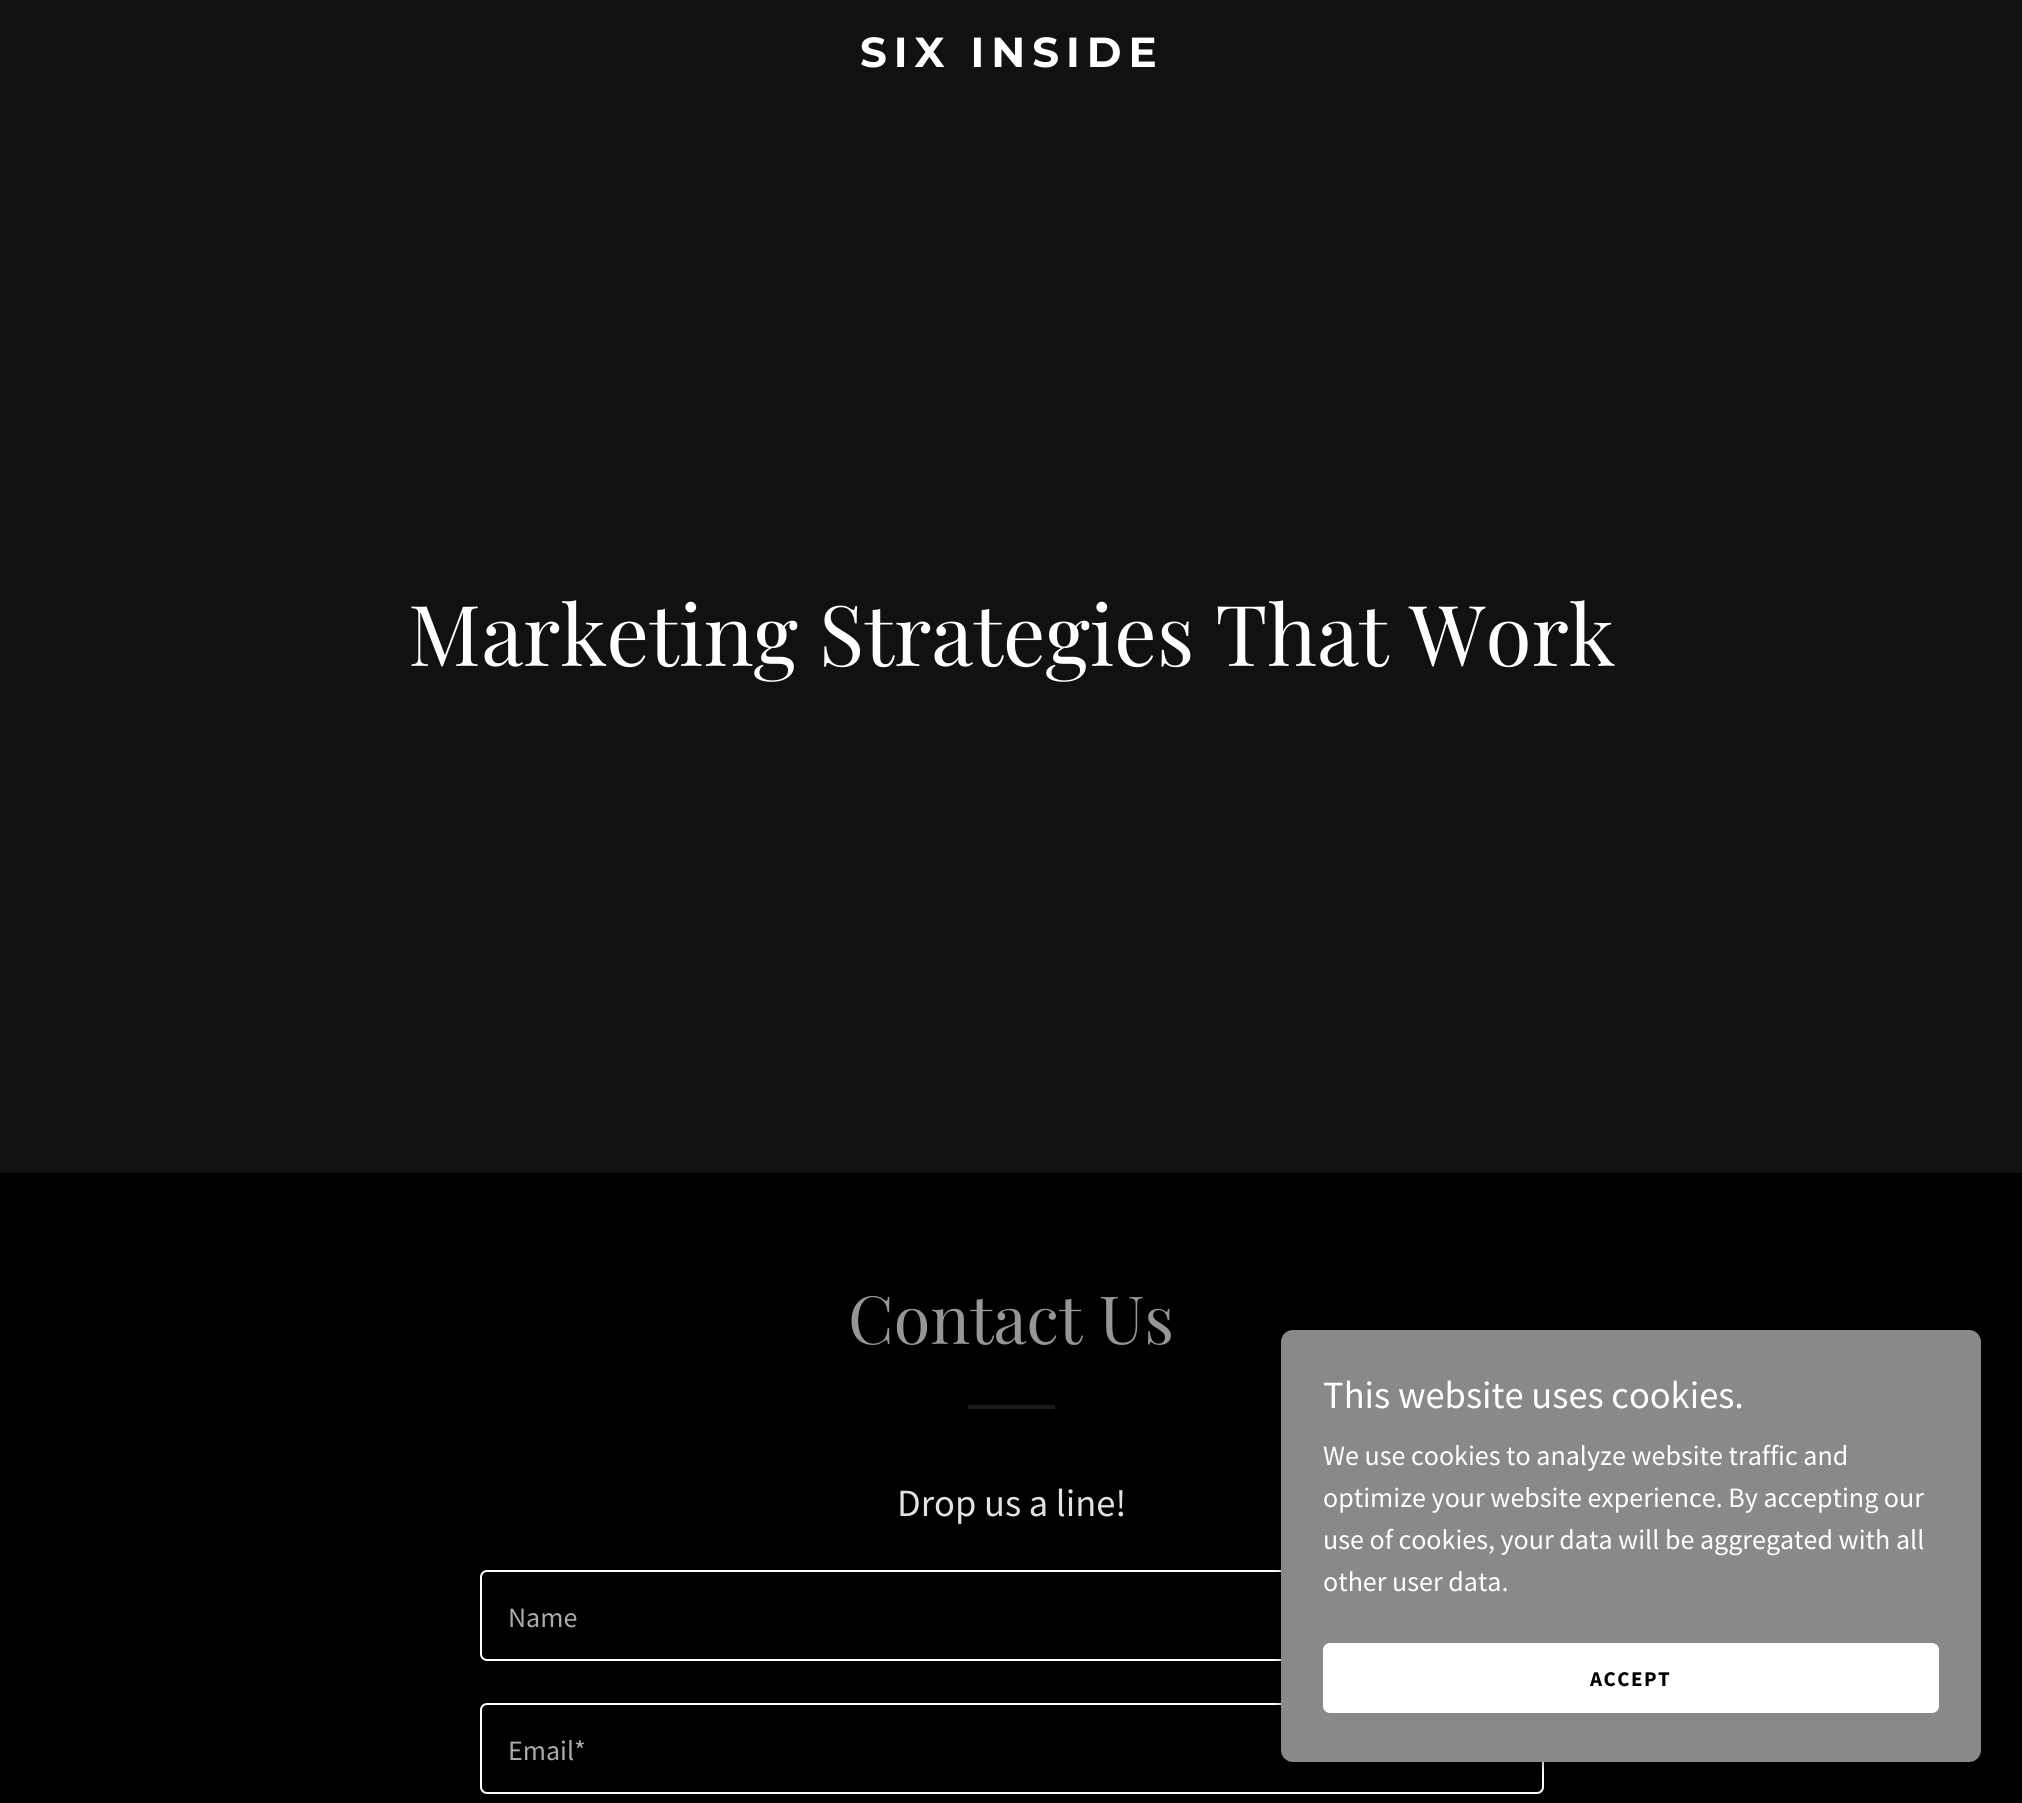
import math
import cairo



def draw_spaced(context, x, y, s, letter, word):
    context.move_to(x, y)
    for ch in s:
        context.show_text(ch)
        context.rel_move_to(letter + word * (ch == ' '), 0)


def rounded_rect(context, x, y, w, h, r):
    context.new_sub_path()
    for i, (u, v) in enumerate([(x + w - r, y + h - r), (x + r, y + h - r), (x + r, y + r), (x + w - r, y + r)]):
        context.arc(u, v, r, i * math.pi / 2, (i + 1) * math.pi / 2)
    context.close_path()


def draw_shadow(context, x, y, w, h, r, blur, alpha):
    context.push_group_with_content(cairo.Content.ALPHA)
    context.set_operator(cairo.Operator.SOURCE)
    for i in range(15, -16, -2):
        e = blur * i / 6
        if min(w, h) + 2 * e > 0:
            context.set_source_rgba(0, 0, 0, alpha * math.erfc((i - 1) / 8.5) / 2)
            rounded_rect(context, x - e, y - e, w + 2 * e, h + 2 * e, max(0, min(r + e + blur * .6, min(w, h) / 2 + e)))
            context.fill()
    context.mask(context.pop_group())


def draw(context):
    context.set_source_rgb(0, 0, 0)
    context.paint()
    context.set_source_rgb(17 / 255, 17 / 255, 17 / 255)
    context.rectangle(0, 0, 2022, 1173)
    context.fill()
    context.set_source_rgb(27 / 255, 27 / 255, 27 / 255)
    context.rectangle(968, 1405, 87, 4)
    context.fill()
    rounded_rect(context, 481, 1571, 1062, 89, 6)
    context.set_source_rgb(1, 1, 1)
    context.stroke()
    rounded_rect(context, 481, 1704, 1062, 89, 6)
    context.stroke()
    context.set_source_rgb(0, 0, 0)
    draw_shadow(context, 1281, 1334, 700, 432, 12, 5, 0.3)
    context.set_source_rgb(137 / 255, 137 / 255, 137 / 255)
    rounded_rect(context, 1281, 1330, 700, 432, 12)
    context.fill()
    context.set_source_rgb(1, 1, 1)
    rounded_rect(context, 1323, 1643, 616, 70, 7)
    context.fill()
    context.select_font_face("Montserrat", cairo.FontSlant.NORMAL, cairo.FontWeight.BOLD)
    context.set_font_size(42)
    draw_spaced(context, 860, 67, "SIX INSIDE", 7, 0)
    context.select_font_face("Playfair Display")
    context.set_font_size(84)
    context.move_to(408, 666)
    context.show_text("Marketing Strategies That Work")
    context.set_font_size(66.5)
    context.set_source_rgb(150 / 255, 150 / 255, 150 / 255)
    context.move_to(848, 1344)
    context.show_text("Contact Us")
    context.select_font_face("Source Sans Pro")
    context.set_font_size(38.5)
    context.set_source_rgb(226 / 255, 226 / 255, 226 / 255)
    context.move_to(897, 1516)
    context.show_text("Drop us a line!")
    context.set_font_size(28)
    context.set_source_rgb(171 / 255, 171 / 255, 171 / 255)
    context.move_to(508, 1627)
    context.show_text("Name")
    context.move_to(508, 1760)
    context.show_text("Email*")
    context.set_font_size(38.5)
    context.set_source_rgb(1, 1, 1)
    context.move_to(1323, 1408)
    context.show_text("This website uses cookies.")
    context.set_font_size(28)
    context.move_to(1323, 1465)
    context.show_text("We use cookies to analyze website traffic and")
    context.move_to(1323, 1507)
    context.show_text("optimize your website experience. By accepting our")
    context.move_to(1323, 1549)
    context.show_text("use of cookies, your data will be aggregated with all")
    context.move_to(1323, 1591)
    context.show_text("other user data.")
    context.select_font_face("Source Sans Pro", cairo.FontSlant.NORMAL, cairo.FontWeight.BOLD)
    context.set_font_size(21)
    context.set_source_rgb(0, 0, 0)
    draw_spaced(context, 1590, 1686, "ACCEPT", 1.5, 0)


surface = cairo.ImageSurface(cairo.Format.RGB24, 2022, 1803)
context = cairo.Context(surface)
options = cairo.FontOptions()
options.set_hint_metrics(cairo.HintMetrics.OFF)
options.set_hint_style(cairo.HintStyle.NONE)
context.set_font_options(options)
context.set_miter_limit(4)
draw(context)
surface.write_to_png("out.png")
